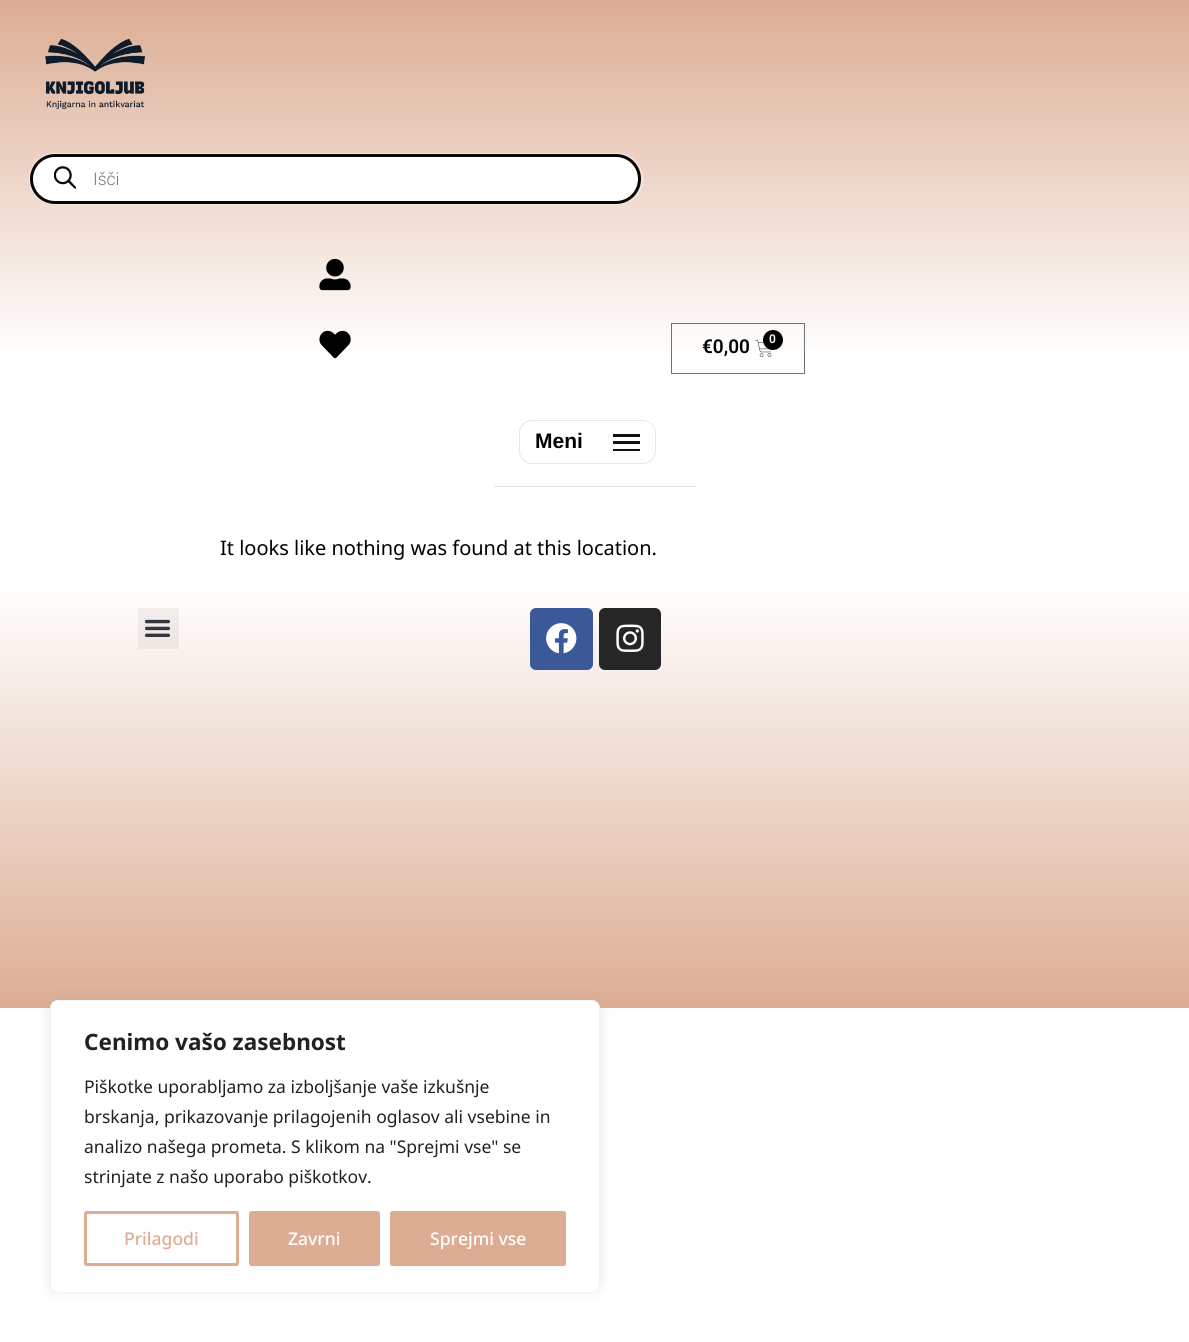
import math
import cairo



def rounded_rect(context, x, y, w, h, r):
    context.new_sub_path()
    for i, (u, v) in enumerate([(x + w - r, y + h - r), (x + r, y + h - r), (x + r, y + r), (x + w - r, y + r)]):
        context.arc(u, v, r, i * math.pi / 2, (i + 1) * math.pi / 2)
    context.close_path()


def draw_shadow(context, x, y, w, h, r, blur, alpha):
    context.push_group_with_content(cairo.Content.ALPHA)
    context.set_operator(cairo.Operator.SOURCE)
    for i in range(15, -16, -2):
        e = blur * i / 6
        if min(w, h) + 2 * e > 0:
            context.set_source_rgba(0, 0, 0, alpha * math.erfc((i - 1) / 8.5) / 2)
            rounded_rect(context, x - e, y - e, w + 2 * e, h + 2 * e, max(0, min(r + e + blur * .6, min(w, h) / 2 + e)))
            context.fill()
    context.mask(context.pop_group())


def draw_image(context, path, x, y, w, h):
    context.save()
    context.set_source_surface(cairo.ImageSurface.create_from_png(path), x, y)
    context.rectangle(x, y, w, h)
    context.fill()
    context.restore()


def draw(context):
    context.set_source_rgb(1, 1, 1)
    context.paint()
    gradient = cairo.LinearGradient(595, 0, 595, 513)
    gradient.add_color_stop_rgba(0, 220 / 255, 173 / 255, 147 / 255, 1)
    gradient.add_color_stop_rgba(0.7, 1, 1, 1, 1)
    context.set_source(gradient)
    context.rectangle(0, 0, 1189, 351)
    context.fill()
    draw_image(context, "images/1.png", 45, 38, 101, 71)
    rounded_rect(context, 29.5, 153.5, 613, 51, 25.5)
    context.set_source_rgb(238 / 255, 238 / 255, 238 / 255)
    context.set_line_width(1)
    context.stroke()
    context.set_source_rgb(1, 1, 1)
    rounded_rect(context, 31.5, 155.5, 608, 47, 23.5)
    context.fill_preserve()
    context.set_source_rgb(10 / 255, 6 / 255, 6 / 255)
    context.set_line_width(3)
    context.stroke()
    draw_image(context, "images/2.png", 54, 166, 22, 23)
    draw_image(context, "images/3.png", 319, 258, 32, 33)
    draw_image(context, "images/4.png", 319, 330, 32, 29)
    context.rectangle(671.5, 323.5, 133, 50)
    context.set_source_rgb(105 / 255, 114 / 255, 125 / 255)
    context.set_line_width(1)
    context.stroke()
    draw_image(context, "images/5.png", 755, 339, 17, 18)
    context.set_source_rgb(0, 0, 0)
    context.arc(773, 340, 10, 0, 2 * math.pi)
    context.fill()
    context.set_source_rgb(229 / 255, 231 / 255, 235 / 255)
    context.rectangle(494, 486, 202, 1)
    context.fill()
    rounded_rect(context, 519.5, 420.5, 136, 43, 12.5)
    context.stroke()
    context.set_source_rgb(17 / 255, 17 / 255, 17 / 255)
    context.rectangle(613, 449, 27, 2)
    context.fill()
    context.rectangle(613, 441, 27, 3)
    context.fill()
    context.rectangle(613, 434, 27, 3)
    context.fill()
    gradient = cairo.LinearGradient(595, 582, 595, 1008)
    gradient.add_color_stop_rgba(0, 1, 1, 1, 1)
    gradient.add_color_stop_rgba(1, 220 / 255, 173 / 255, 147 / 255, 1)
    context.set_source(gradient)
    context.rectangle(0, 592, 1189, 416)
    context.fill()
    context.set_source_rgba(0, 0, 0, 0.05)
    context.rectangle(138, 608, 41, 41)
    context.fill()
    draw_image(context, "images/6.png", 144, 619, 27, 18)
    context.set_source_rgb(59 / 255, 89 / 255, 152 / 255)
    rounded_rect(context, 530, 608, 63, 62, 6)
    context.fill()
    draw_image(context, "images/7.png", 546, 623, 31, 31)
    context.set_source_rgb(38 / 255, 38 / 255, 38 / 255)
    rounded_rect(context, 599, 608, 62, 62, 6)
    context.fill()
    draw_image(context, "images/8.png", 616, 624, 28, 28)
    context.set_source_rgb(172 / 255, 171 / 255, 171 / 255)
    draw_shadow(context, 50, 999, 550, 292, 8, 6, 0.3)
    context.set_source_rgb(1, 1, 1)
    rounded_rect(context, 50.5, 1000.5, 549, 292, 7.5)
    context.fill_preserve()
    context.set_source_rgb(244 / 255, 244 / 255, 244 / 255)
    context.stroke()
    rounded_rect(context, 85.5, 1212.5, 152, 52, 1)
    context.set_source_rgb(220 / 255, 173 / 255, 147 / 255)
    context.set_line_width(3)
    context.stroke()
    rounded_rect(context, 250.5, 1212.5, 128, 52, 1)
    context.fill_preserve()
    context.stroke()
    rounded_rect(context, 391.5, 1212.5, 173, 52, 1)
    context.fill_preserve()
    context.stroke()
    context.select_font_face("Roboto Light")
    context.set_font_size(17.5)
    context.set_source_rgb(119 / 255, 119 / 255, 119 / 255)
    context.move_to(93, 185)
    context.show_text("Išči")
    context.select_font_face("Roboto SemiBold")
    context.set_font_size(19)
    context.set_source_rgb(0, 0, 0)
    context.move_to(702, 353)
    context.show_text("€0,00")
    context.set_font_size(12)
    context.set_source_rgb(1, 1, 1)
    context.move_to(769, 343)
    context.show_text("0")
    context.select_font_face("Liberation Sans", cairo.FontSlant.NORMAL, cairo.FontWeight.BOLD)
    context.set_font_size(21)
    context.set_source_rgb(0, 0, 0)
    context.move_to(535, 448)
    context.show_text("Meni")
    context.select_font_face("Noto Sans")
    context.set_font_size(20)
    context.move_to(220, 555)
    context.show_text("It looks like nothing was found at this location.")
    context.select_font_face("Noto Sans", cairo.FontSlant.NORMAL, cairo.FontWeight.BOLD)
    context.set_font_size(22.5)
    context.set_source_rgb(33 / 255, 33 / 255, 33 / 255)
    context.move_to(84, 1050)
    context.show_text("Cenimo vašo zasebnost")
    context.select_font_face("Noto Sans")
    context.set_font_size(17.5)
    context.move_to(84, 1093)
    context.show_text("Piškotke uporabljamo za izboljšanje vaše izkušnje")
    context.move_to(84, 1123)
    context.show_text("brskanja, prikazovanje prilagojenih oglasov ali vsebine in")
    context.move_to(84, 1153)
    context.show_text("analizo našega prometa. S klikom na \"Sprejmi vse\" se")
    context.move_to(84, 1183)
    context.show_text("strinjate z našo uporabo piškotkov.")
    context.select_font_face("Noto Sans Medium")
    context.set_source_rgb(220 / 255, 173 / 255, 147 / 255)
    context.move_to(124, 1245)
    context.show_text("Prilagodi")
    context.set_source_rgb(1, 1, 1)
    context.move_to(288, 1245)
    context.show_text("Zavrni")
    context.move_to(430, 1245)
    context.show_text("Sprejmi vse")


surface = cairo.ImageSurface(cairo.Format.RGB24, 1189, 1342)
context = cairo.Context(surface)
options = cairo.FontOptions()
options.set_hint_metrics(cairo.HintMetrics.OFF)
options.set_hint_style(cairo.HintStyle.NONE)
context.set_font_options(options)
context.set_miter_limit(4)
draw(context)
surface.write_to_png("out.png")
